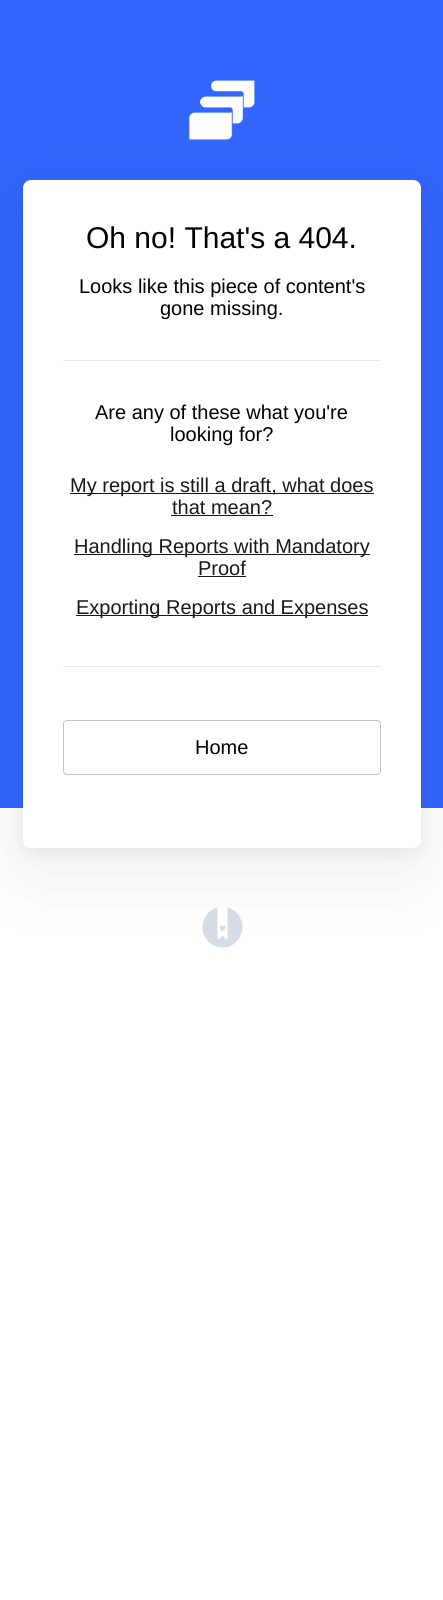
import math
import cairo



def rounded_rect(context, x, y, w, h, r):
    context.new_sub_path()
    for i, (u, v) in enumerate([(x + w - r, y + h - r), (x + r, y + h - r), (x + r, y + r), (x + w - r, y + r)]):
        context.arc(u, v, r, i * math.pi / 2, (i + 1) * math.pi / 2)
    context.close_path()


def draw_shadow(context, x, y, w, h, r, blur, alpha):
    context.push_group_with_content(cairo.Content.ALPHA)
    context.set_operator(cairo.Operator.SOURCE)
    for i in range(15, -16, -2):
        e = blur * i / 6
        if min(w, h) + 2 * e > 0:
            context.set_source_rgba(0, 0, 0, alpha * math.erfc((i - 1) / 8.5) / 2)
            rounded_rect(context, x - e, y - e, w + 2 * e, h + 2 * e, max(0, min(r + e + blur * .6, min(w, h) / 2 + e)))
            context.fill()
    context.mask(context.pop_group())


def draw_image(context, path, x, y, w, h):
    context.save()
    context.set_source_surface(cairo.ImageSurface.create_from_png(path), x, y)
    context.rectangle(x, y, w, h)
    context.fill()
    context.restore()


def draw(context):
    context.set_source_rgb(1, 1, 1)
    context.paint()
    context.set_source_rgb(51 / 255, 102 / 255, 1)
    context.rectangle(0, 0, 443, 808)
    context.fill()
    draw_image(context, "images/1.png", 188, 80, 67, 60)
    context.set_source_rgb(0, 0, 0)
    draw_shadow(context, 23, 201, 398, 668, 8, 45.5, 0.07)
    draw_shadow(context, 23, 185, 398, 668, 8, 10, 0.06)
    context.set_source_rgb(1, 1, 1)
    rounded_rect(context, 23, 180, 398, 668, 8)
    context.fill()
    context.set_source_rgb(234 / 255, 234 / 255, 234 / 255)
    context.rectangle(63, 360, 318, 1)
    context.fill()
    context.set_source_rgb(25 / 255, 25 / 255, 25 / 255)
    context.rectangle(70, 493, 304, 1)
    context.fill()
    context.rectangle(171, 515, 102, 1)
    context.fill()
    context.rectangle(74, 554, 296, 1)
    context.fill()
    context.rectangle(198, 576, 48, 1)
    context.fill()
    context.rectangle(76, 615, 292, 1)
    context.fill()
    context.set_source_rgb(234 / 255, 234 / 255, 234 / 255)
    context.rectangle(63, 666, 318, 1)
    context.fill()
    rounded_rect(context, 63.5, 720.5, 317, 54, 3.5)
    context.set_source_rgb(195 / 255, 195 / 255, 195 / 255)
    context.set_line_width(1)
    context.stroke()
    draw_image(context, "images/2.png", 202, 907, 41, 41)
    context.select_font_face("Liberation Sans")
    context.set_font_size(30)
    context.set_source_rgb(0, 0, 0)
    context.move_to(86, 248)
    context.show_text("Oh no! That's a 404.")
    context.set_font_size(20)
    context.move_to(79, 293)
    context.show_text("Looks like this piece of content's")
    context.move_to(160, 315)
    context.show_text("gone missing.")
    context.move_to(95, 419)
    context.show_text("Are any of these what you're")
    context.move_to(170, 441)
    context.show_text("looking for?")
    context.set_source_rgb(25 / 255, 25 / 255, 25 / 255)
    context.move_to(70, 492)
    context.show_text("My report is still a draft, what does")
    context.move_to(172, 514)
    context.show_text("that mean?")
    context.move_to(74, 553)
    context.show_text("Handling Reports with Mandatory")
    context.move_to(198, 575)
    context.show_text("Proof")
    context.move_to(76, 614)
    context.show_text("Exporting Reports and Expenses")
    context.set_source_rgb(0, 0, 0)
    context.move_to(195, 754)
    context.show_text("Home")


surface = cairo.ImageSurface(cairo.Format.RGB24, 443, 1600)
context = cairo.Context(surface)
options = cairo.FontOptions()
options.set_hint_metrics(cairo.HintMetrics.OFF)
options.set_hint_style(cairo.HintStyle.NONE)
context.set_font_options(options)
context.set_miter_limit(4)
draw(context)
surface.write_to_png("out.png")
